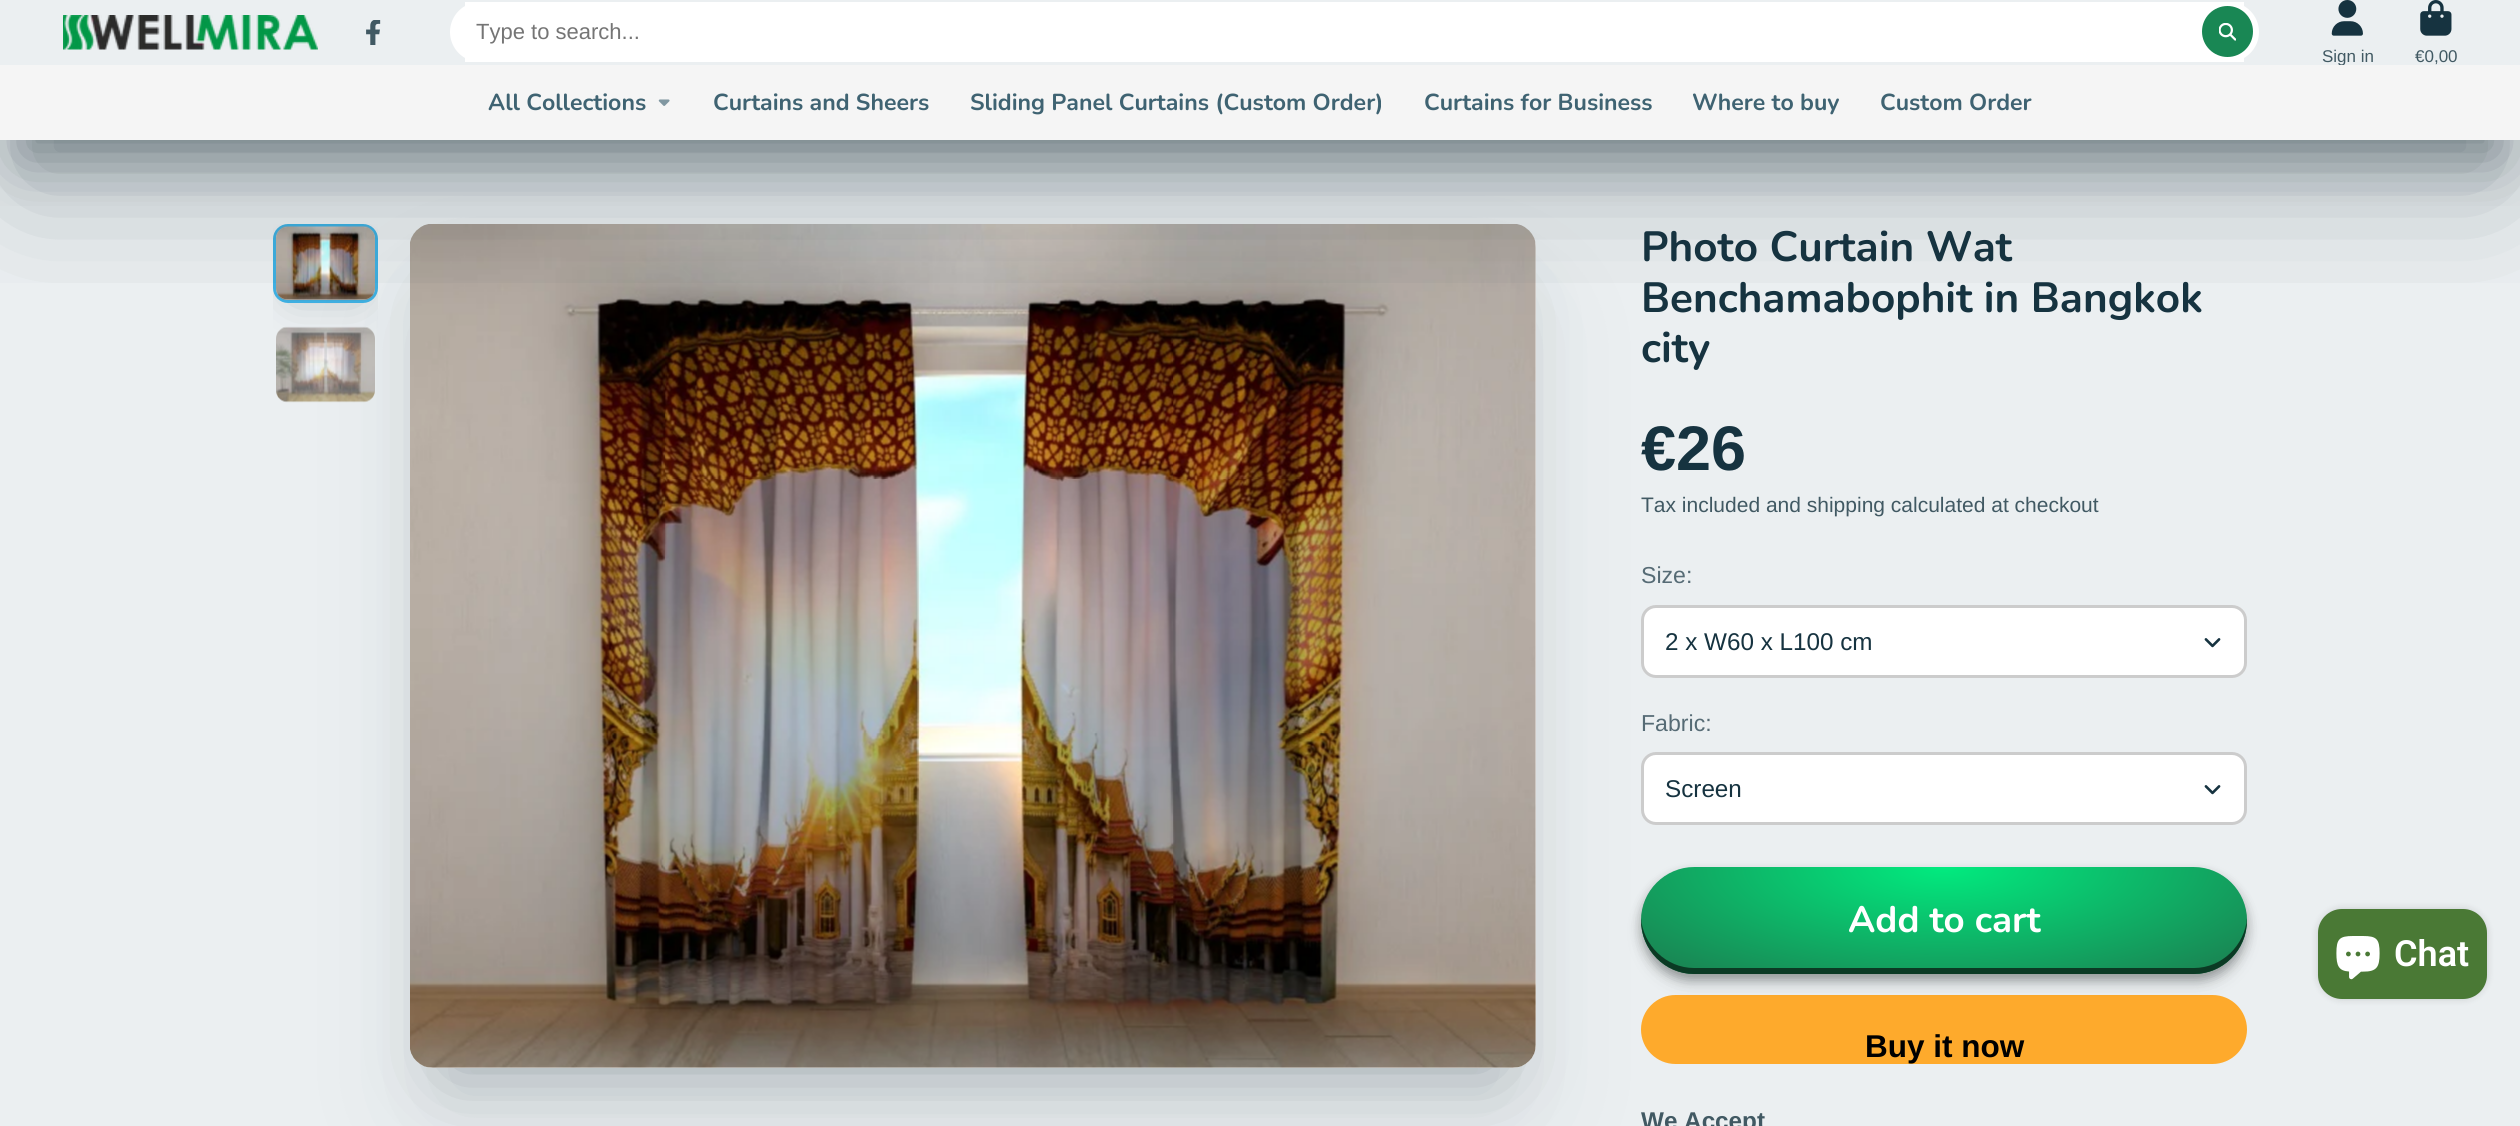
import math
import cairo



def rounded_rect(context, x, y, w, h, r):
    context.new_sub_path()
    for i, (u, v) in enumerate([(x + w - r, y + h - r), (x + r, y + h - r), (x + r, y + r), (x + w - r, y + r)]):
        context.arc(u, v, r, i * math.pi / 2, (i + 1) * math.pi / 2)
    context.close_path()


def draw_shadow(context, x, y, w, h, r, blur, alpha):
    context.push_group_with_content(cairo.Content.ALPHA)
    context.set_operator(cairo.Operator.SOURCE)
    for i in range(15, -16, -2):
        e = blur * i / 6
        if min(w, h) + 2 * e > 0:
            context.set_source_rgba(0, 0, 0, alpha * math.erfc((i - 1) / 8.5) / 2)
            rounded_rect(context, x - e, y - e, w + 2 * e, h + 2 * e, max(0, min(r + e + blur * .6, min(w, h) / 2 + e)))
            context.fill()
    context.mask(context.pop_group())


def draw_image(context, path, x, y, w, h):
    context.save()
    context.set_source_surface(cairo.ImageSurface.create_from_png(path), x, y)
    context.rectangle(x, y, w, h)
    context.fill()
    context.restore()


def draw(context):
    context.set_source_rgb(235 / 255, 239 / 255, 241 / 255)
    context.paint()
    context.save()
    context.rectangle(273, 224, 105, 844)
    context.clip()
    context.set_source_rgb(15 / 255, 36 / 255, 45 / 255)
    draw_shadow(context, 294, 255, 63, 38, 0, 21, 0.3)
    context.restore()
    rounded_rect(context, 274.5, 225.5, 102, 76, 13.5)
    context.set_source_rgb(62 / 255, 175 / 255, 225 / 255)
    context.set_line_width(3)
    context.stroke()
    draw_image(context, "images/8.png", 276, 226, 99, 75)
    draw_image(context, "images/9.png", 276, 326, 99, 77)
    context.set_source_rgb(15 / 255, 36 / 255, 45 / 255)
    draw_shadow(context, 449, 303, 1048, 765, 0, 39.5, 0.3)
    draw_shadow(context, 437, 315, 1074, 792, 0, 65.5, 0.1)
    context.set_source_rgb(1, 1, 1)
    rounded_rect(context, 410, 224, 1126, 844, 24)
    context.fill()
    draw_image(context, "images/7.png", 410, 224, 1126, 844)
    context.save()
    context.rectangle(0, 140, 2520, 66)
    context.clip()
    context.set_source_rgb(15 / 255, 36 / 255, 45 / 255)
    draw_shadow(context, 21, 60, 2478, 98, 0, 29, 0.4)
    context.restore()
    context.save()
    context.rectangle(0, 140, 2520, 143)
    context.clip()
    context.set_source_rgb(15 / 255, 36 / 255, 45 / 255)
    draw_shadow(context, 21, 87, 2478, 98, 0, 65.5, 0.3)
    context.restore()
    draw_image(context, "images/1.png", 63, 15, 255, 35)
    draw_image(context, "images/2.png", 366, 20, 15, 25)
    context.rectangle(465, 2, 1779, 60)
    context.fill()
    rounded_rect(context, 450, 2, 1809, 60, 30)
    context.fill()
    context.set_source_rgb(25 / 255, 135 / 255, 84 / 255)
    context.arc(2227.5, 31.5, 25.5, 0, 2 * math.pi)
    context.fill()
    draw_image(context, "images/3.png", 2219, 23, 17, 18)
    draw_image(context, "images/4.png", 2331, 0, 32, 36)
    draw_image(context, "images/5.png", 2420, 0, 32, 36)
    context.set_source_rgb(1, 1, 1)
    rounded_rect(context, 1642.5, 606.5, 603, 70, 13.5)
    context.fill_preserve()
    context.set_source_rgb(204 / 255, 204 / 255, 204 / 255)
    context.stroke()
    draw_image(context, "images/10.png", 2204, 638, 17, 10)
    context.set_source_rgb(1, 1, 1)
    rounded_rect(context, 1642.5, 753.5, 603, 70, 13.5)
    context.fill_preserve()
    context.set_source_rgb(204 / 255, 204 / 255, 204 / 255)
    context.stroke()
    draw_image(context, "images/10.png", 2204, 785, 17, 10)
    context.set_source_rgb(254 / 255, 170 / 255, 44 / 255)
    rounded_rect(context, 1641, 995, 606, 69, 34.5)
    context.fill()
    context.set_source_rgb(1 / 255, 6 / 255, 4 / 255)
    draw_shadow(context, 1647, 884, 594, 96, 48, 11, 0.15)
    draw_shadow(context, 1641, 873, 606, 107, 53.5, 5.5, 0.3)
    context.save()
    rounded_rect(context, 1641, 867, 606, 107, 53.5)
    context.clip()
    draw_shadow(context, 1647, 884, 594, 96, 48, 11, 0.15)
    draw_shadow(context, 1641, 873, 606, 107, 53.5, 5.5, 0.3)
    context.restore()
    gradient = cairo.RadialGradient(0, 0, 0, 0, 0, 1)
    gradient.set_matrix(cairo.Matrix(1 / 429, 0, 0, 1 / 151, -1 * 1944 / 429, -1 * 867 / 151))
    gradient.add_color_stop_rgba(0, 1 / 255, 235 / 255, 127 / 255, 1)
    gradient.add_color_stop_rgba(0.9, 25 / 255, 135 / 255, 84 / 255, 1)
    context.set_source(gradient)
    rounded_rect(context, 1641, 867, 606, 107, 53.5)
    context.fill()
    context.set_source_rgb(11 / 255, 58 / 255, 36 / 255)
    context.new_path()
    context.move_to(1641, 918)
    context.line_to(1641, 920)
    context.curve_to(1641, 950, 1665, 974, 1694, 974)
    context.line_to(2194, 974)
    context.curve_to(2223, 974, 2247, 950, 2247, 920)
    context.line_to(2247, 918)
    context.curve_to(2245, 945, 2222, 968, 2194, 968)
    context.line_to(1694, 968)
    context.curve_to(1666, 968, 1643, 945, 1641, 918)
    context.close_path()
    context.fill()
    context.set_source_rgb(0, 0, 0)
    draw_shadow(context, 2318, 909, 169, 90, 24, 4, 0.15)
    context.set_source_rgb(74 / 255, 121 / 255, 53 / 255)
    rounded_rect(context, 2318, 909, 169, 90, 24)
    context.fill()
    draw_image(context, "images/11.png", 2336, 936, 44, 44)
    context.select_font_face("Liberation Sans")
    context.set_font_size(22)
    context.set_source_rgb(117 / 255, 117 / 255, 117 / 255)
    context.move_to(476, 39)
    context.show_text("Type to search...")
    context.set_font_size(17)
    context.set_source_rgb(65 / 255, 89 / 255, 99 / 255)
    context.move_to(2322, 62)
    context.show_text("Sign in")
    context.move_to(2415, 62)
    context.show_text("€0,00")
    context.set_source_rgb(245 / 255, 245 / 255, 245 / 255)
    context.rectangle(0, 65, 2520, 75)
    context.fill()
    context.select_font_face("Nunito", cairo.FontSlant.NORMAL, cairo.FontWeight.BOLD)
    context.set_font_size(23.1)
    context.set_source_rgb(63 / 255, 99 / 255, 114 / 255)
    context.move_to(488, 110)
    context.show_text("All Collections")
    draw_image(context, "images/6.png", 658, 99, 12, 7)
    context.move_to(713, 110)
    context.show_text("Curtains and Sheers")
    context.move_to(970, 110)
    context.show_text("Sliding Panel Curtains (Custom Order)")
    context.move_to(1424, 110)
    context.show_text("Curtains for Business")
    context.move_to(1692, 110)
    context.show_text("Where to buy")
    context.move_to(1880, 110)
    context.show_text("Custom Order")
    context.set_font_size(42.25)
    context.set_source_rgb(22 / 255, 51 / 255, 64 / 255)
    context.move_to(1641, 261)
    context.show_text("Photo Curtain Wat")
    context.move_to(1641, 312)
    context.show_text("Benchamabophit in Bangkok")
    context.move_to(1641, 362)
    context.show_text("city")
    context.select_font_face("Liberation Sans", cairo.FontSlant.NORMAL, cairo.FontWeight.BOLD)
    context.set_font_size(63)
    context.move_to(1641, 470)
    context.show_text("€26")
    context.select_font_face("Liberation Sans")
    context.set_font_size(21)
    context.set_source_rgb(65 / 255, 89 / 255, 99 / 255)
    context.move_to(1641, 512)
    context.show_text("Tax included and shipping calculated at checkout")
    context.set_font_size(23.1)
    context.set_source_rgb(86 / 255, 107 / 255, 117 / 255)
    context.move_to(1641, 583)
    context.show_text("Size:")
    context.set_font_size(24.25)
    context.set_source_rgb(22 / 255, 51 / 255, 64 / 255)
    context.move_to(1665, 650)
    context.show_text("2 x W60 x L100 cm")
    context.set_font_size(23.1)
    context.set_source_rgb(86 / 255, 107 / 255, 117 / 255)
    context.move_to(1641, 731)
    context.show_text("Fabric:")
    context.set_font_size(24.25)
    context.set_source_rgb(22 / 255, 51 / 255, 64 / 255)
    context.move_to(1665, 797)
    context.show_text("Screen")
    context.select_font_face("Nunito", cairo.FontSlant.NORMAL, cairo.FontWeight.BOLD)
    context.set_font_size(36.75)
    context.set_source_rgb(1, 1, 1)
    context.move_to(1848, 932)
    context.show_text("Add to cart")
    context.select_font_face("Liberation Sans", cairo.FontSlant.NORMAL, cairo.FontWeight.BOLD)
    context.set_font_size(31.5)
    context.set_source_rgb(0, 0, 0)
    context.move_to(1865, 1057)
    context.show_text("Buy it now")
    context.set_font_size(24.25)
    context.set_source_rgb(65 / 255, 89 / 255, 99 / 255)
    context.move_to(1641, 1129)
    context.show_text("We Accept")
    context.select_font_face("Roboto SemiBold")
    context.set_font_size(36)
    context.set_source_rgb(1, 1, 1)
    context.move_to(2394, 966)
    context.show_text("Chat")


surface = cairo.ImageSurface(cairo.Format.RGB24, 2520, 1126)
context = cairo.Context(surface)
options = cairo.FontOptions()
options.set_hint_metrics(cairo.HintMetrics.OFF)
options.set_hint_style(cairo.HintStyle.NONE)
context.set_font_options(options)
context.set_miter_limit(4)
draw(context)
surface.write_to_png("out.png")
